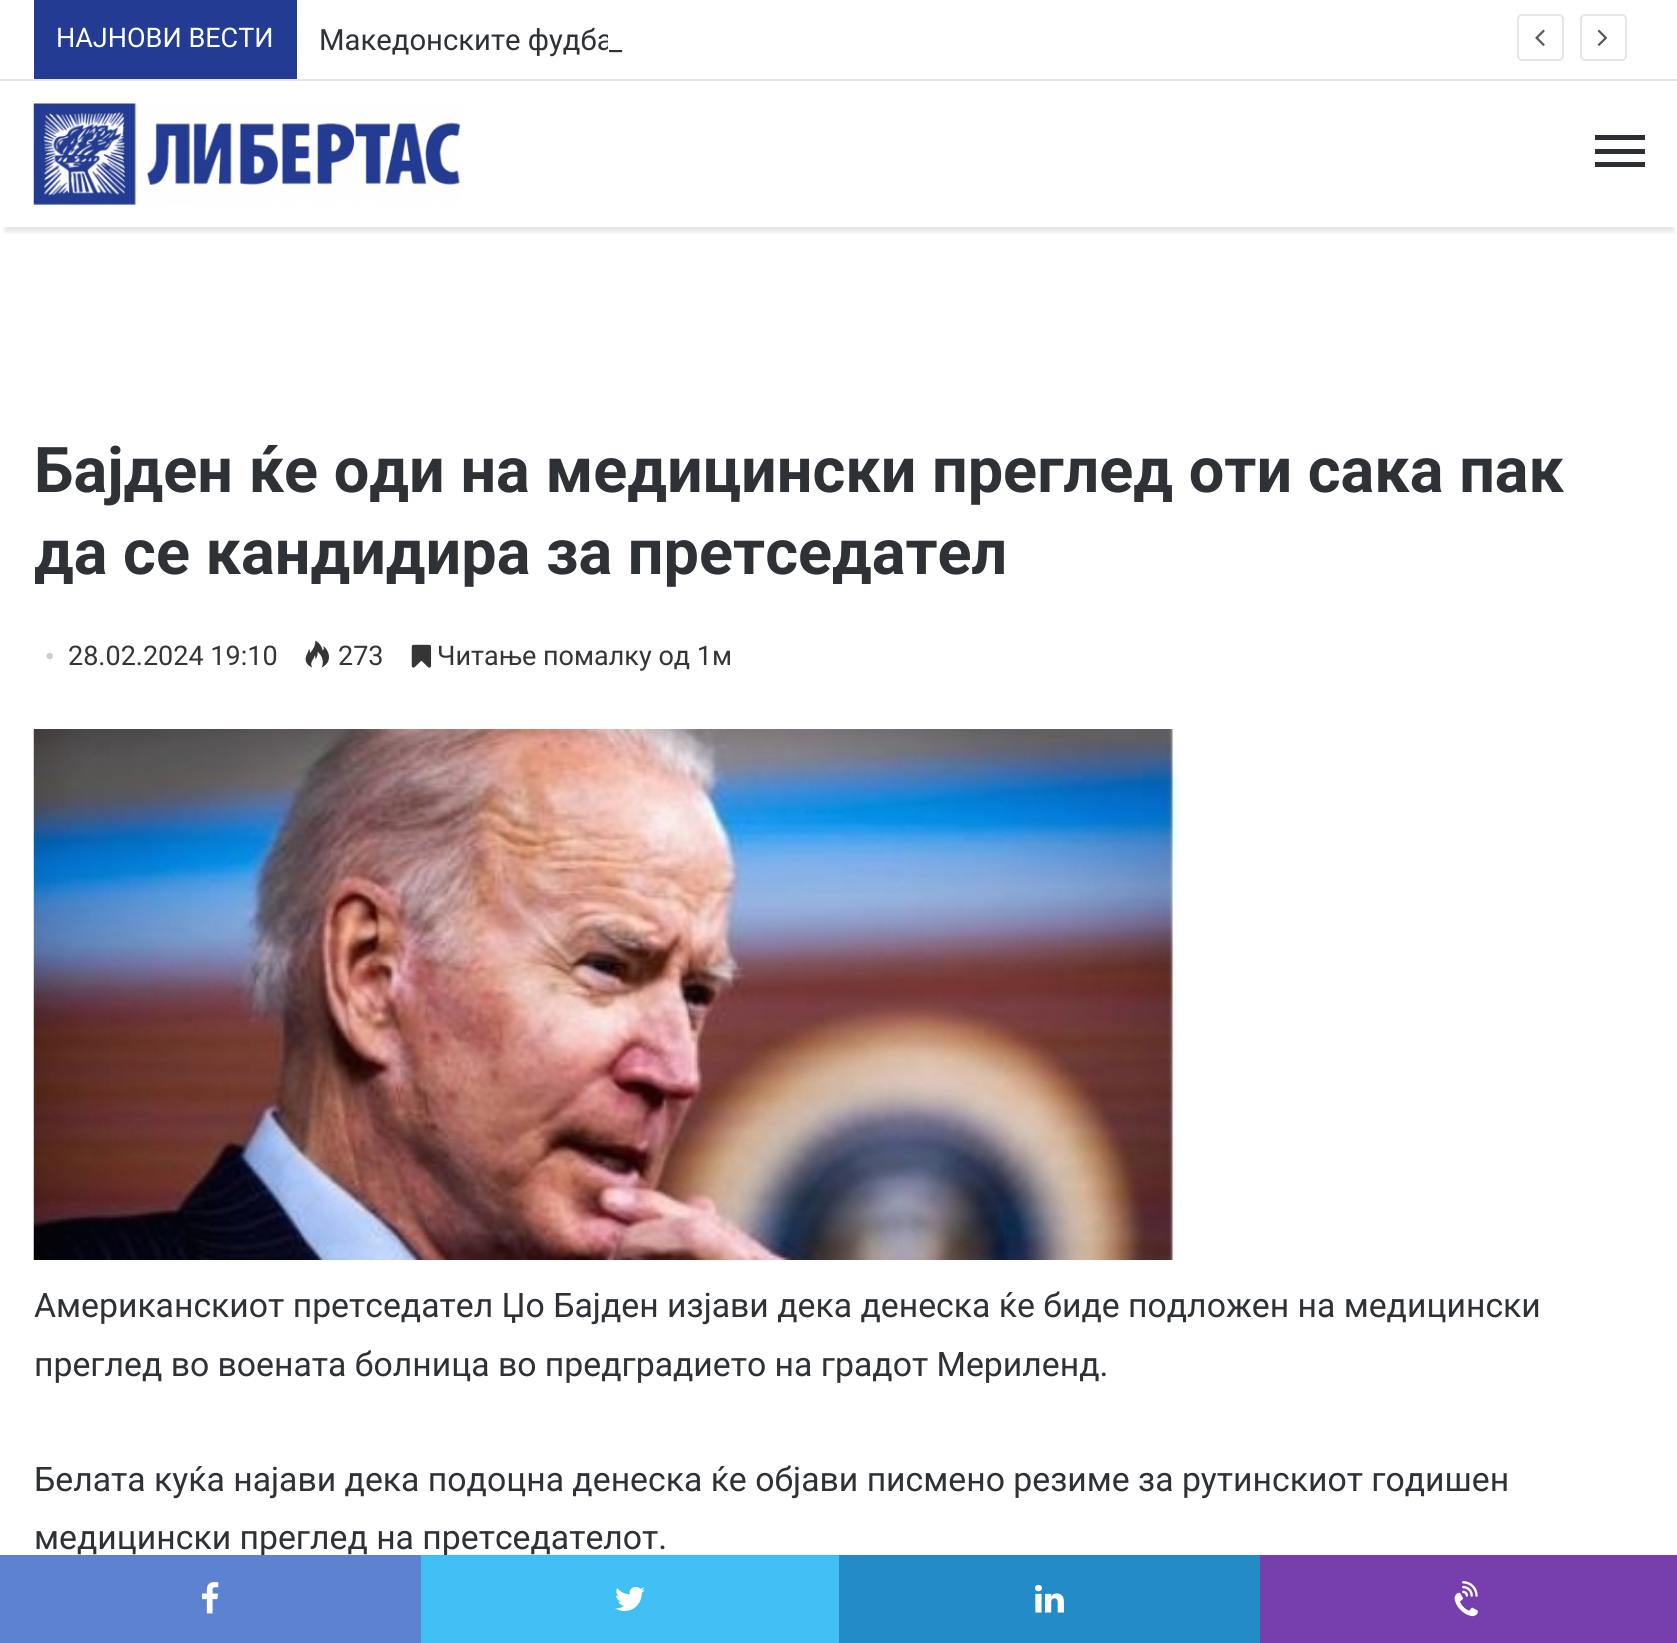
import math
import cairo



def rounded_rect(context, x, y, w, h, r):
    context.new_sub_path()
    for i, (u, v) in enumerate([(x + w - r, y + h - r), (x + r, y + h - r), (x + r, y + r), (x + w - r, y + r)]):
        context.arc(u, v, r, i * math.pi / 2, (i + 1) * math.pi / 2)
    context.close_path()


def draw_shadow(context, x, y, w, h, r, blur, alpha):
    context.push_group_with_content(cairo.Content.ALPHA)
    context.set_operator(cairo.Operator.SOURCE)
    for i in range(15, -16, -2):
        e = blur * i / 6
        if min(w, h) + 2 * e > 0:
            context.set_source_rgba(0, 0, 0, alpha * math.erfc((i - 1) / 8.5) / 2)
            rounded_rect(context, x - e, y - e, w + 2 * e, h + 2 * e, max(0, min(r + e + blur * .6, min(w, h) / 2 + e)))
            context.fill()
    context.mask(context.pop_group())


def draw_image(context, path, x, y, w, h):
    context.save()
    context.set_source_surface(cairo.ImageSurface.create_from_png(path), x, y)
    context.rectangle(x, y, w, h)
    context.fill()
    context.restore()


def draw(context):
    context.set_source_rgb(1, 1, 1)
    context.paint()
    context.set_source_rgb(230 / 255, 230 / 255, 230 / 255)
    context.rectangle(0, 79, 1677, 2)
    context.fill()
    context.set_source_rgb(35 / 255, 59 / 255, 146 / 255)
    context.rectangle(34, 0, 263, 79)
    context.fill()
    rounded_rect(context, 1518, 15, 45, 45, 4)
    context.set_source_rgb(230 / 255, 230 / 255, 230 / 255)
    context.stroke()
    draw_image(context, "images/1.png", 1535, 29, 10, 17)
    rounded_rect(context, 1581, 15, 45, 45, 4)
    context.stroke()
    draw_image(context, "images/2.png", 1597, 29, 11, 17)
    context.save()
    context.rectangle(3, 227, 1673, 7)
    context.clip()
    context.set_source_rgb(0, 0, 0)
    draw_shadow(context, 5, 95, 1669, 137, 0, 2, 0.1)
    context.restore()
    draw_image(context, "images/3.png", 33, 103, 428, 102)
    context.set_source_rgb(44 / 255, 47 / 255, 52 / 255)
    context.rectangle(1595, 149, 50, 5)
    context.fill()
    context.rectangle(1595, 135, 50, 5)
    context.fill()
    context.rectangle(1595, 162, 50, 5)
    context.fill()
    draw_image(context, "images/4.png", 305, 640, 24, 28)
    draw_image(context, "images/5.png", 411, 644, 21, 24)
    draw_image(context, "images/6.png", 33, 729, 1146, 531)
    context.set_source_rgb(35 / 255, 140 / 255, 200 / 255)
    context.rectangle(839, 1555, 421, 88)
    context.fill()
    draw_image(context, "images/9.png", 1035, 1584, 29, 29)
    context.set_source_rgb(119 / 255, 62 / 255, 173 / 255)
    context.rectangle(1260, 1555, 417, 88)
    context.fill()
    draw_image(context, "images/10.png", 1454, 1581, 24, 36)
    context.select_font_face("Roboto")
    context.set_font_size(27)
    context.set_source_rgb(1, 1, 1)
    context.move_to(56, 47)
    context.show_text("НАЈНОВИ ВЕСТИ")
    context.set_font_size(29.25)
    context.set_source_rgb(46 / 255, 49 / 255, 54 / 255)
    context.move_to(319, 50)
    context.show_text("Македонските фудба")
    context.set_source_rgb(1, 1, 1)
    context.rectangle(608, 35, 3, 15)
    context.fill()
    context.set_source_rgb(46 / 255, 49 / 255, 54 / 255)
    context.move_to(609, 50)
    context.show_text("_")
    context.select_font_face("Roboto", cairo.FontSlant.NORMAL, cairo.FontWeight.BOLD)
    context.set_font_size(63)
    context.move_to(34, 492)
    context.show_text("Бајден ќе оди на медицински преглед оти сака пак")
    context.move_to(34, 574)
    context.show_text("да се кандидира за претседател")
    context.select_font_face("Liberation Serif")
    context.set_font_size(27)
    context.set_source_rgb(205 / 255, 205 / 255, 205 / 255)
    context.move_to(45, 665)
    context.show_text("•")
    context.select_font_face("Roboto")
    context.set_source_rgb(53 / 255, 53 / 255, 53 / 255)
    context.move_to(68, 665)
    context.show_text("28.02.2024 19:10")
    context.move_to(338, 665)
    context.show_text("273")
    context.move_to(437, 665)
    context.show_text("Читање помалку од 1м")
    context.set_font_size(33.75)
    context.set_source_rgb(46 / 255, 49 / 255, 54 / 255)
    context.move_to(34, 1317)
    context.show_text("Американскиот претседател Џо Бајден изјави дека денеска ќе биде подложен на медицински")
    context.move_to(34, 1376)
    context.show_text("преглед во воената болница во предградието на градот Мериленд.")
    context.move_to(34, 1491)
    context.show_text("Белата куќа најави дека подоцна денеска ќе објави писмено резиме за рутинскиот годишен")
    context.move_to(34, 1549)
    context.show_text("медицински преглед на претседателот.")
    context.set_source_rgb(93 / 255, 130 / 255, 209 / 255)
    context.rectangle(0, 1555, 421, 88)
    context.fill()
    draw_image(context, "images/7.png", 202, 1582, 17, 32)
    context.set_source_rgb(64 / 255, 191 / 255, 245 / 255)
    context.rectangle(421, 1555, 418, 88)
    context.fill()
    draw_image(context, "images/8.png", 615, 1586, 30, 25)


surface = cairo.ImageSurface(cairo.Format.RGB24, 1677, 1643)
context = cairo.Context(surface)
options = cairo.FontOptions()
options.set_hint_metrics(cairo.HintMetrics.OFF)
options.set_hint_style(cairo.HintStyle.NONE)
context.set_font_options(options)
context.set_miter_limit(4)
draw(context)
surface.write_to_png("out.png")
